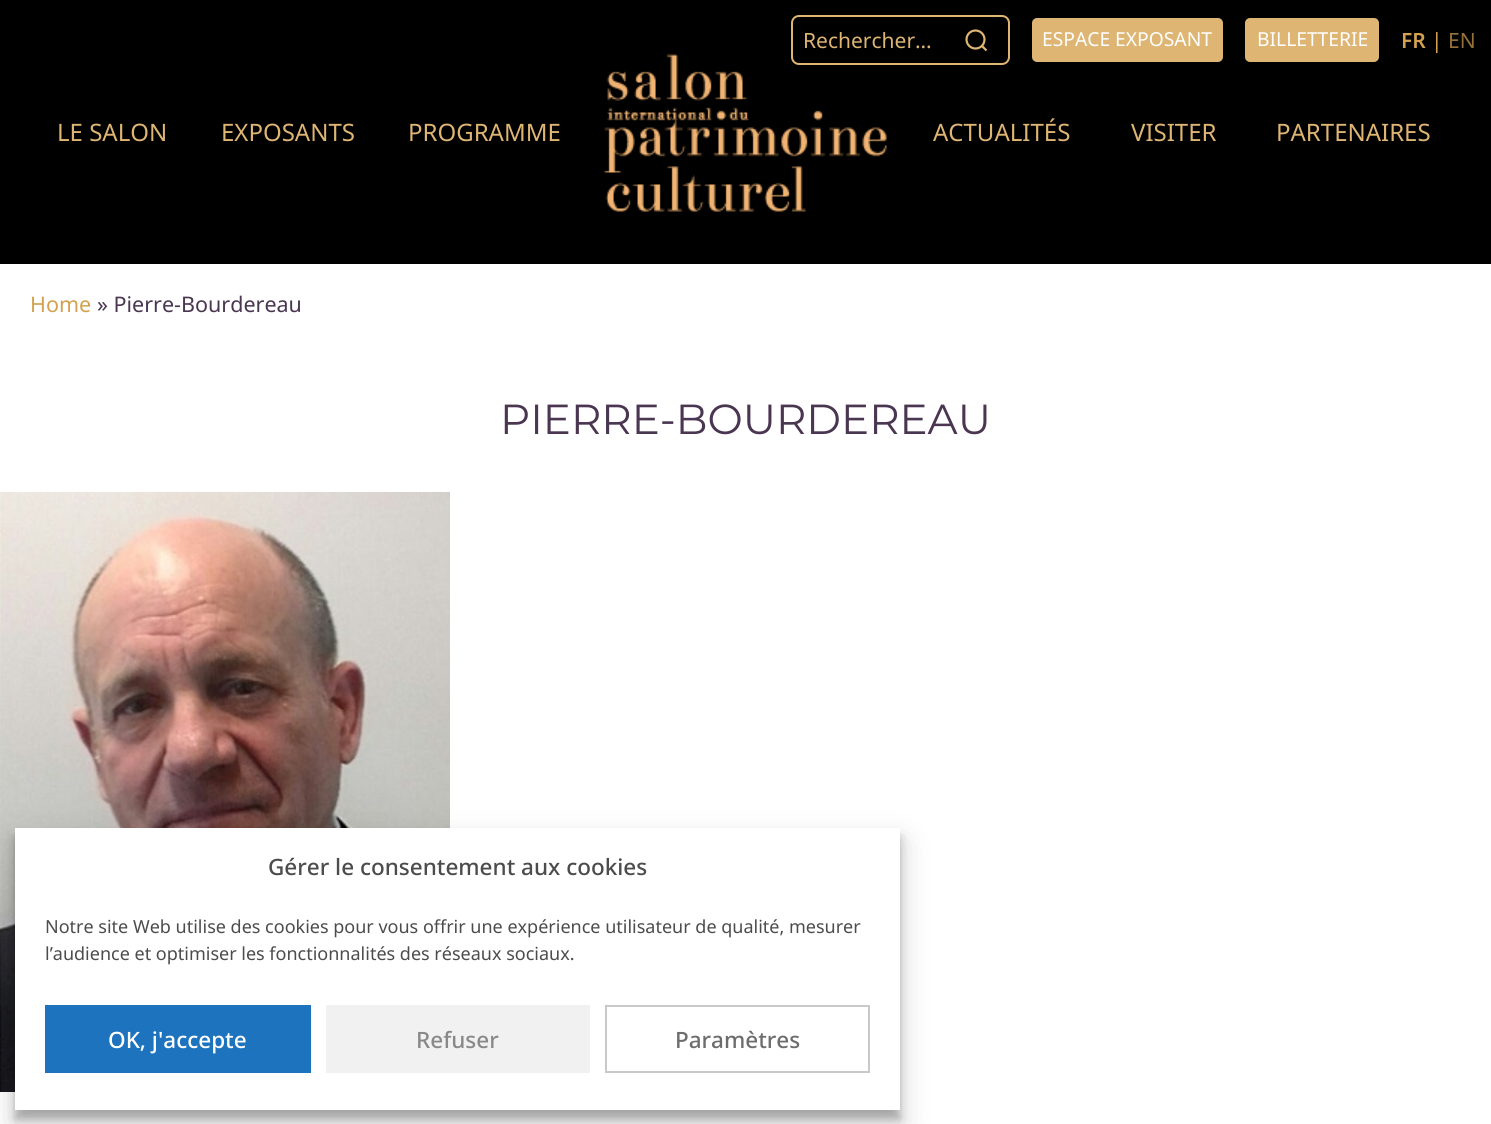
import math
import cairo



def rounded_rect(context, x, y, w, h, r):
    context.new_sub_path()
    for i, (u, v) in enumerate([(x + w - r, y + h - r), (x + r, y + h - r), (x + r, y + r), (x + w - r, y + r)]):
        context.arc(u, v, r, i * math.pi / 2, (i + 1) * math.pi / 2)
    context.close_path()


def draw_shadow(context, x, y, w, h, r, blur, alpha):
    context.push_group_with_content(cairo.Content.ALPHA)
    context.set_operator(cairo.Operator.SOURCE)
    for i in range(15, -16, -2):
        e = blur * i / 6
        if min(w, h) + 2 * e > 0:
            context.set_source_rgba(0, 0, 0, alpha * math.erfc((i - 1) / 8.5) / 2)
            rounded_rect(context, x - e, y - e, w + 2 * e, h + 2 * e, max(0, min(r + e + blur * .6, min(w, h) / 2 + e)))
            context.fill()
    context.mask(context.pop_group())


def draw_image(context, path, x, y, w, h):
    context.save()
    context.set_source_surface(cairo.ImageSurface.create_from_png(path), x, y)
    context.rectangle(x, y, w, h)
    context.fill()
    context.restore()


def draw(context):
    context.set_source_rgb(1, 1, 1)
    context.paint()
    context.set_source_rgb(0, 0, 0)
    context.rectangle(0, 0, 1491, 264)
    context.fill()
    draw_image(context, "images/1.png", 604, 53, 283, 159)
    rounded_rect(context, 792, 16, 217, 48, 7)
    context.set_source_rgb(222 / 255, 181 / 255, 115 / 255)
    context.stroke()
    context.arc(975.5, 39.5, 9, 0, 2 * math.pi)
    context.set_line_width(2.2)
    context.stroke()
    context.new_path()
    context.move_to(986.5, 50.5)
    context.line_to(981.5, 45.5)
    context.stroke()
    rounded_rect(context, 1033, 19, 189, 42, 4)
    context.fill_preserve()
    context.set_line_width(2)
    context.stroke()
    rounded_rect(context, 1246, 19, 132, 42, 4)
    context.fill_preserve()
    context.stroke()
    draw_image(context, "images/2.png", 0, 492, 450, 600)
    context.set_source_rgb(0, 0, 0)
    draw_shadow(context, 15, 837, 885, 282, 0, 4.5, 0.23)
    draw_shadow(context, 15, 843, 885, 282, 0, 15, 0.19)
    context.set_source_rgb(1, 1, 1)
    context.rectangle(15, 828, 885, 282)
    context.fill()
    context.set_source_rgb(30 / 255, 115 / 255, 190 / 255)
    context.rectangle(45, 1005, 266, 68)
    context.fill()
    context.set_source_rgb(241 / 255, 241 / 255, 241 / 255)
    context.rectangle(326, 1005, 264, 68)
    context.fill()
    context.rectangle(606, 1006, 263, 66)
    context.set_source_rgb(201 / 255, 201 / 255, 201 / 255)
    context.stroke()
    context.select_font_face("Noto Sans")
    context.set_font_size(21)
    context.set_source_rgb(222 / 255, 181 / 255, 115 / 255)
    context.move_to(803, 48)
    context.show_text("Rechercher…")
    context.set_font_size(19.25)
    context.set_source_rgb(1, 1, 1)
    context.move_to(1042, 46)
    context.show_text("ESPACE EXPOSANT")
    context.move_to(1257, 46)
    context.show_text("BILLETTERIE")
    context.select_font_face("Noto Sans SemiBold")
    context.set_font_size(21)
    context.set_source_rgb(211 / 255, 161 / 255, 80 / 255)
    context.move_to(1401, 48)
    context.show_text("FR")
    context.select_font_face("Noto Sans")
    context.move_to(1431, 48)
    context.show_text("|")
    context.set_source_rgb(148 / 255, 113 / 255, 56 / 255)
    context.move_to(1448, 48)
    context.show_text("EN")
    context.set_font_size(24)
    context.set_source_rgb(222 / 255, 181 / 255, 115 / 255)
    context.move_to(57, 141)
    context.show_text("LE SALON")
    context.move_to(221, 141)
    context.show_text("EXPOSANTS")
    context.move_to(408, 141)
    context.show_text("PROGRAMME")
    context.move_to(933, 141)
    context.show_text("ACTUALITÉS")
    context.move_to(1131, 141)
    context.show_text("VISITER")
    context.move_to(1276, 141)
    context.show_text("PARTENAIRES")
    context.set_font_size(21.5)
    context.set_source_rgb(211 / 255, 161 / 255, 80 / 255)
    context.move_to(30, 312)
    context.show_text("Home")
    context.set_source_rgb(74 / 255, 54 / 255, 81 / 255)
    context.move_to(97, 312)
    context.show_text("» Pierre-Bourdereau")
    context.select_font_face("Montserrat")
    context.set_font_size(42)
    context.move_to(500, 434)
    context.show_text("PIERRE-BOURDEREAU")
    context.select_font_face("Noto Sans Medium")
    context.set_font_size(22.5)
    context.set_source_rgb(76 / 255, 76 / 255, 76 / 255)
    context.move_to(268, 875)
    context.show_text("Gérer le consentement aux cookies")
    context.select_font_face("Noto Sans")
    context.set_font_size(18)
    context.move_to(45, 933)
    context.show_text("Notre site Web utilise des cookies pour vous offrir une expérience utilisateur de qualité, mesurer")
    context.move_to(45, 960)
    context.show_text("l’audience et optimiser les fonctionnalités des réseaux sociaux.")
    context.select_font_face("Noto Sans Medium")
    context.set_font_size(22.5)
    context.set_source_rgb(1, 1, 1)
    context.move_to(108, 1048)
    context.show_text("OK, j'accepte")
    context.set_source_rgb(137 / 255, 137 / 255, 137 / 255)
    context.move_to(416, 1048)
    context.show_text("Refuser")
    context.set_source_rgb(109 / 255, 109 / 255, 109 / 255)
    context.move_to(675, 1048)
    context.show_text("Paramètres")


surface = cairo.ImageSurface(cairo.Format.RGB24, 1491, 1124)
context = cairo.Context(surface)
options = cairo.FontOptions()
options.set_hint_metrics(cairo.HintMetrics.OFF)
options.set_hint_style(cairo.HintStyle.NONE)
context.set_font_options(options)
context.set_miter_limit(4)
draw(context)
surface.write_to_png("out.png")
